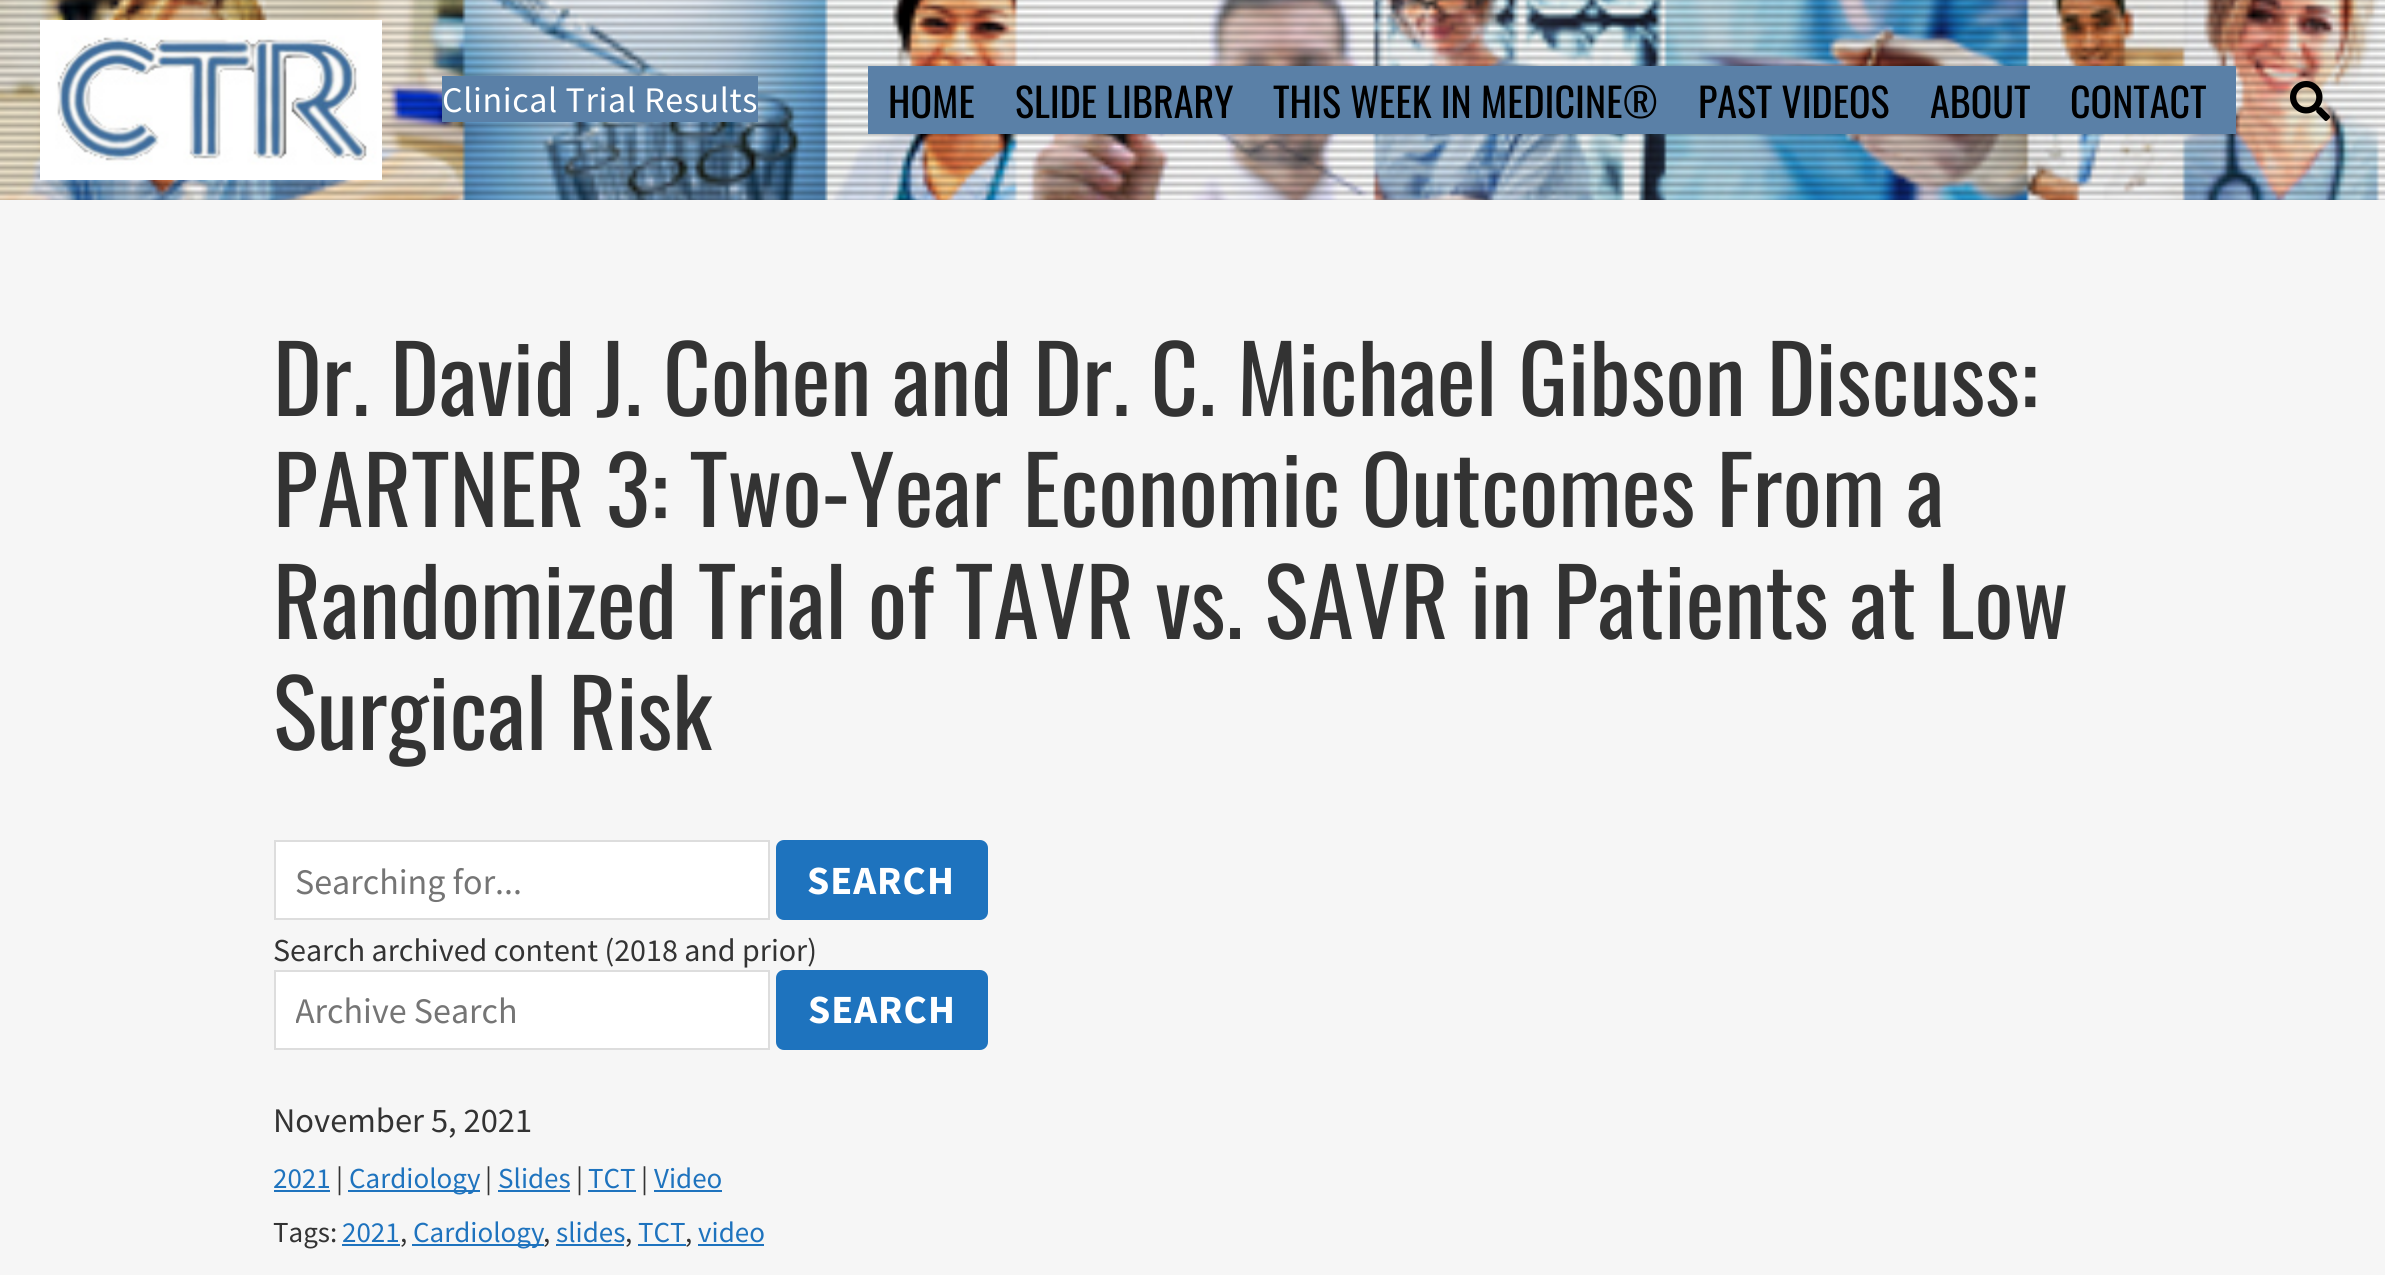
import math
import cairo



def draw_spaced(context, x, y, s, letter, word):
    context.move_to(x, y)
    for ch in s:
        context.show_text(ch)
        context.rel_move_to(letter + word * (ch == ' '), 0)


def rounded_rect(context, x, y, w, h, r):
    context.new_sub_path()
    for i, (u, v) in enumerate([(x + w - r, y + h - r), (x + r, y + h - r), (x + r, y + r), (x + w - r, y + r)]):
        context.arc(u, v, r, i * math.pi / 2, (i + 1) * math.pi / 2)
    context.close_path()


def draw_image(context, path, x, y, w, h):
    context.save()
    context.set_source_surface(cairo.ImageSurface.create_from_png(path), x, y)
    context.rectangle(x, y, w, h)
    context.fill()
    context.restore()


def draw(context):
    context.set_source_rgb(246 / 255, 246 / 255, 246 / 255)
    context.paint()
    draw_image(context, "images/1.png", 0, 0, 2385, 200)
    draw_image(context, "images/2.png", 40, 20, 342, 160)
    context.set_source_rgb(90 / 255, 128 / 255, 167 / 255)
    context.rectangle(442, 76, 316, 46)
    context.fill()
    context.rectangle(868, 66, 1368, 68)
    context.fill()
    draw_image(context, "images/3.png", 2290, 81, 40, 40)
    context.set_source_rgb(1, 1, 1)
    context.rectangle(275, 841, 494, 78)
    context.fill_preserve()
    context.set_source_rgb(221 / 255, 221 / 255, 221 / 255)
    context.stroke()
    context.set_source_rgb(30 / 255, 115 / 255, 190 / 255)
    rounded_rect(context, 776, 840, 212, 80, 8)
    context.fill()
    context.set_source_rgb(1, 1, 1)
    context.rectangle(275, 971, 494, 78)
    context.fill_preserve()
    context.set_source_rgb(221 / 255, 221 / 255, 221 / 255)
    context.stroke()
    context.set_source_rgb(30 / 255, 115 / 255, 190 / 255)
    rounded_rect(context, 776, 970, 212, 80, 8)
    context.fill()
    context.rectangle(274, 1190, 56, 2)
    context.fill()
    context.rectangle(348, 1190, 132, 2)
    context.fill()
    context.rectangle(498, 1190, 72, 2)
    context.fill()
    context.rectangle(588, 1190, 48, 2)
    context.fill()
    context.rectangle(654, 1190, 68, 2)
    context.fill()
    context.rectangle(342, 1244, 58, 2)
    context.fill()
    context.rectangle(412, 1244, 132, 2)
    context.fill()
    context.rectangle(556, 1244, 68, 2)
    context.fill()
    context.rectangle(638, 1244, 48, 2)
    context.fill()
    context.rectangle(698, 1244, 66, 2)
    context.fill()
    context.select_font_face("Source Sans Pro")
    context.set_font_size(36)
    context.set_source_rgb(1, 1, 1)
    draw_spaced(context, 442, 112, "Clinical Trial Results", 0.6, 0)
    context.select_font_face("Oswald")
    context.set_font_size(40)
    context.set_source_rgb(0, 0, 0)
    context.move_to(888, 118)
    context.show_text("HOME")
    context.move_to(1015, 118)
    context.show_text("SLIDE LIBRARY")
    context.move_to(1273, 118)
    context.show_text("THIS WEEK IN MEDICINE®")
    context.move_to(1698, 118)
    context.show_text("PAST VIDEOS")
    context.move_to(1930, 118)
    context.show_text("ABOUT")
    context.move_to(2070, 118)
    context.show_text("CONTACT")
    context.set_font_size(92.75)
    context.set_source_rgb(51 / 255, 51 / 255, 51 / 255)
    context.move_to(273, 416)
    context.show_text("Dr. David J. Cohen and Dr. C. Michael Gibson Discuss:")
    context.move_to(273, 527)
    context.show_text("PARTNER 3: Two-Year Economic Outcomes From a")
    context.move_to(273, 639)
    context.show_text("Randomized Trial of TAVR vs. SAVR in Patients at Low")
    context.move_to(273, 750)
    context.show_text("Surgical Risk")
    context.select_font_face("Source Sans Pro")
    context.set_font_size(36)
    context.set_source_rgb(117 / 255, 117 / 255, 117 / 255)
    context.move_to(295, 894)
    context.show_text("Searching for...")
    context.select_font_face("Source Sans Pro", cairo.FontSlant.NORMAL, cairo.FontWeight.BOLD)
    context.set_font_size(40)
    context.set_source_rgb(1, 1, 1)
    draw_spaced(context, 807, 894, "SEARCH", 1, 0)
    context.select_font_face("Source Sans Pro")
    context.set_font_size(32)
    context.set_source_rgb(51 / 255, 51 / 255, 51 / 255)
    context.move_to(273, 961)
    context.show_text("Search archived content (2018 and prior)")
    context.save()
    context.rectangle(296, 988, 452, 46)
    context.clip()
    context.set_font_size(36)
    context.set_source_rgb(117 / 255, 117 / 255, 117 / 255)
    context.move_to(295, 1023)
    context.show_text("Archive Search")
    context.restore()
    context.select_font_face("Source Sans Pro", cairo.FontSlant.NORMAL, cairo.FontWeight.BOLD)
    context.set_font_size(40)
    context.set_source_rgb(1, 1, 1)
    draw_spaced(context, 808, 1023, "SEARCH", 1, 0)
    context.select_font_face("Source Sans Pro")
    context.set_font_size(34.5)
    context.set_source_rgb(51 / 255, 51 / 255, 51 / 255)
    context.move_to(273, 1132)
    context.show_text("November 5, 2021")
    context.set_font_size(29)
    context.set_source_rgb(30 / 255, 115 / 255, 190 / 255)
    context.move_to(273, 1188)
    context.show_text("2021")
    context.set_source_rgb(51 / 255, 51 / 255, 51 / 255)
    context.move_to(336, 1188)
    context.show_text("|")
    context.set_source_rgb(30 / 255, 115 / 255, 190 / 255)
    context.move_to(349, 1188)
    context.show_text("Cardiology")
    context.set_source_rgb(51 / 255, 51 / 255, 51 / 255)
    context.move_to(485, 1188)
    context.show_text("|")
    context.set_source_rgb(30 / 255, 115 / 255, 190 / 255)
    context.move_to(498, 1188)
    context.show_text("Slides")
    context.set_source_rgb(51 / 255, 51 / 255, 51 / 255)
    context.move_to(576, 1188)
    context.show_text("|")
    context.set_source_rgb(30 / 255, 115 / 255, 190 / 255)
    context.move_to(588, 1188)
    context.show_text("TCT")
    context.set_source_rgb(51 / 255, 51 / 255, 51 / 255)
    context.move_to(641, 1188)
    context.show_text("|")
    context.set_source_rgb(30 / 255, 115 / 255, 190 / 255)
    context.move_to(654, 1188)
    context.show_text("Video")
    context.set_source_rgb(51 / 255, 51 / 255, 51 / 255)
    context.move_to(273, 1242)
    context.show_text("Tags:")
    context.set_source_rgb(30 / 255, 115 / 255, 190 / 255)
    context.move_to(342, 1242)
    context.show_text("2021")
    context.set_source_rgb(51 / 255, 51 / 255, 51 / 255)
    context.move_to(400, 1242)
    context.show_text(",")
    context.set_source_rgb(30 / 255, 115 / 255, 190 / 255)
    context.move_to(413, 1242)
    context.show_text("Cardiology")
    context.set_source_rgb(51 / 255, 51 / 255, 51 / 255)
    context.move_to(543, 1242)
    context.show_text(",")
    context.set_source_rgb(30 / 255, 115 / 255, 190 / 255)
    context.move_to(556, 1242)
    context.show_text("slides")
    context.set_source_rgb(51 / 255, 51 / 255, 51 / 255)
    context.move_to(625, 1242)
    context.show_text(",")
    context.set_source_rgb(30 / 255, 115 / 255, 190 / 255)
    context.move_to(638, 1242)
    context.show_text("TCT")
    context.set_source_rgb(51 / 255, 51 / 255, 51 / 255)
    context.move_to(685, 1242)
    context.show_text(",")
    context.set_source_rgb(30 / 255, 115 / 255, 190 / 255)
    context.move_to(698, 1242)
    context.show_text("video")


surface = cairo.ImageSurface(cairo.Format.RGB24, 2385, 1275)
context = cairo.Context(surface)
options = cairo.FontOptions()
options.set_hint_metrics(cairo.HintMetrics.OFF)
options.set_hint_style(cairo.HintStyle.NONE)
context.set_font_options(options)
context.set_miter_limit(4)
draw(context)
surface.write_to_png("out.png")
